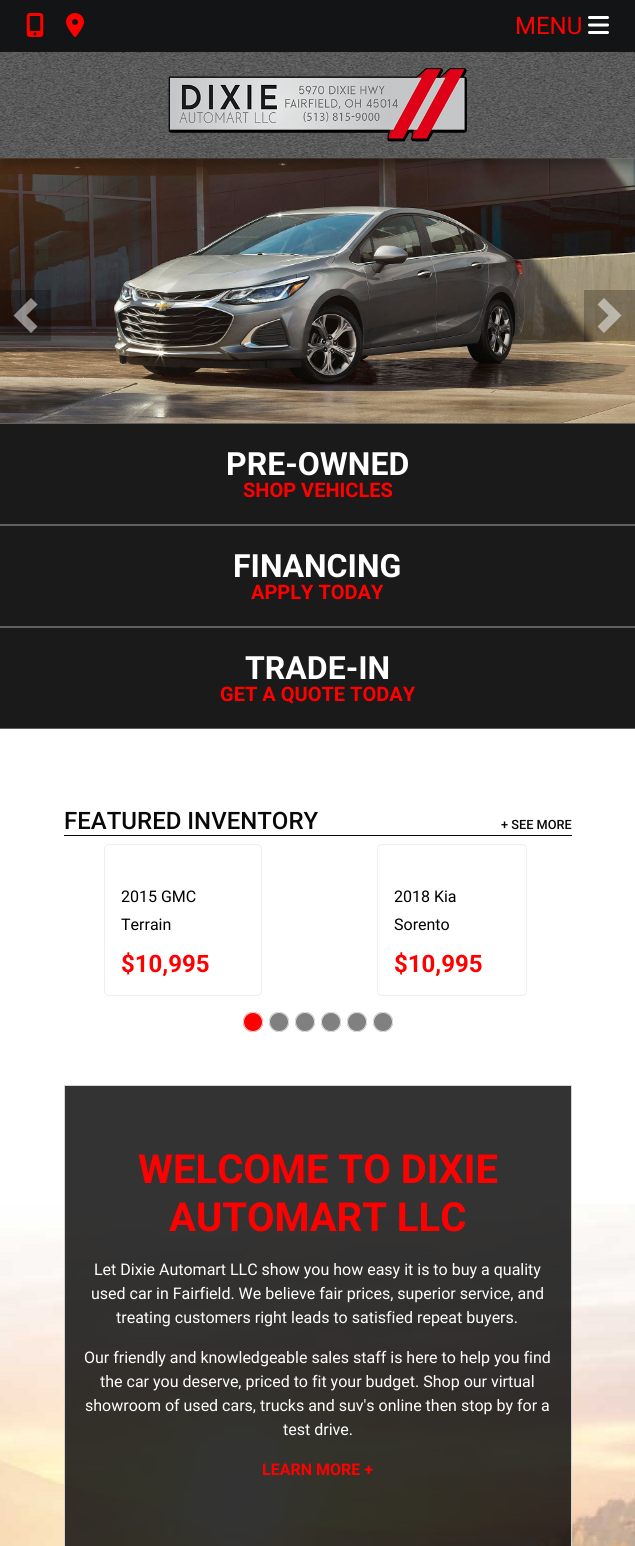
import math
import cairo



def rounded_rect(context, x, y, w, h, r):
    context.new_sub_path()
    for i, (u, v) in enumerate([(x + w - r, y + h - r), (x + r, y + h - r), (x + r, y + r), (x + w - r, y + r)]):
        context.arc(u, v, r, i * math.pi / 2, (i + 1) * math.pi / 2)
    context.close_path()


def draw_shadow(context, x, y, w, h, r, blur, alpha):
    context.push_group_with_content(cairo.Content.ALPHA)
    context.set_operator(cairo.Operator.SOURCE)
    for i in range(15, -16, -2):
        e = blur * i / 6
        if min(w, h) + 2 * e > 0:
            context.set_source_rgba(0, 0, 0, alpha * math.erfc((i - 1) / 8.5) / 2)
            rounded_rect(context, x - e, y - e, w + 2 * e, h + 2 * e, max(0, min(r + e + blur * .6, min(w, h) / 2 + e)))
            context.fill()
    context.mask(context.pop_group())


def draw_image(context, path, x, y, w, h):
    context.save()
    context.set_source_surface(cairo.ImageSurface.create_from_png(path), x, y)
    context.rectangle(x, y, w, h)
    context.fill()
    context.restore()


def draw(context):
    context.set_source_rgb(1, 1, 1)
    context.paint()
    draw_image(context, "images/1.png", 0, 1204, 635, 342)
    draw_image(context, "images/7.png", 0, 158, 635, 265)
    context.save()
    context.rectangle(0, 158, 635, 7)
    context.clip()
    context.set_source_rgb(0, 0, 0)
    draw_shadow(context, 0, 5, 635, 158, 0, 2.5, 0.1)
    context.restore()
    context.save()
    context.rectangle(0, 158, 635, 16)
    context.clip()
    context.set_source_rgb(0, 0, 0)
    draw_shadow(context, 0, 10, 635, 158, 0, 5, 0.2)
    context.restore()
    draw_image(context, "images/2.png", 0, 52, 635, 106)
    context.set_source_rgb(18 / 255, 20 / 255, 22 / 255)
    context.rectangle(0, 0, 635, 52)
    context.fill()
    draw_image(context, "images/3.png", 26, 13, 18, 24)
    draw_image(context, "images/4.png", 66, 13, 18, 24)
    draw_image(context, "images/5.png", 588, 16, 21, 18)
    draw_image(context, "images/6.png", 168, 68, 299, 74)
    context.set_source_rgba(0, 0, 0, 0.25)
    context.rectangle(0, 290, 51, 51)
    context.fill()
    context.set_source_rgba(1, 1, 1, 0.5)
    context.new_path()
    context.move_to(31, 298)
    context.line_to(13.5, 315.5)
    context.line_to(31, 333)
    context.line_to(37.5, 326.5)
    context.line_to(26.5, 315.5)
    context.line_to(37.5, 304.5)
    context.close_path()
    context.fill()
    context.set_source_rgba(0, 0, 0, 0.25)
    context.rectangle(584, 290, 51, 51)
    context.fill()
    context.set_source_rgba(1, 1, 1, 0.5)
    context.new_path()
    context.move_to(604, 298)
    context.line_to(597.5, 304.5)
    context.line_to(608.5, 315.5)
    context.line_to(597.5, 326.5)
    context.line_to(604, 333)
    context.line_to(621.5, 315.5)
    context.close_path()
    context.fill()
    context.set_source_rgb(26 / 255, 26 / 255, 26 / 255)
    context.rectangle(0, 424, 635, 100)
    context.fill()
    context.set_source_rgb(95 / 255, 95 / 255, 95 / 255)
    context.rectangle(0, 423, 635, 1)
    context.fill()
    context.rectangle(0, 524, 635, 2)
    context.fill()
    context.set_source_rgb(26 / 255, 26 / 255, 26 / 255)
    context.rectangle(0, 526, 635, 100)
    context.fill()
    context.set_source_rgb(95 / 255, 95 / 255, 95 / 255)
    context.rectangle(0, 626, 635, 2)
    context.fill()
    context.set_source_rgb(26 / 255, 26 / 255, 26 / 255)
    context.rectangle(0, 628, 635, 100)
    context.fill()
    context.set_source_rgb(95 / 255, 95 / 255, 95 / 255)
    context.rectangle(0, 728, 635, 1)
    context.fill()
    context.set_source_rgb(8 / 255, 8 / 255, 8 / 255)
    context.rectangle(64, 835, 508, 1)
    context.fill()
    rounded_rect(context, 104.5, 844.5, 157, 151, 4.5)
    context.set_source_rgb(239 / 255, 239 / 255, 239 / 255)
    context.set_line_width(1)
    context.stroke()
    rounded_rect(context, 377.5, 844.5, 149, 151, 4.5)
    context.stroke()
    context.set_source_rgb(1, 0, 0)
    context.arc(253, 1022, 10, 0, 2 * math.pi)
    context.fill()
    context.arc(253, 1022, 9.5, 0, 2 * math.pi)
    context.set_source_rgba(235 / 255, 235 / 255, 235 / 255, 0.9)
    context.stroke()
    context.set_source_rgb(128 / 255, 128 / 255, 128 / 255)
    context.arc(279, 1022, 10, 0, 2 * math.pi)
    context.fill()
    context.arc(279, 1022, 9.5, 0, 2 * math.pi)
    context.set_source_rgba(235 / 255, 235 / 255, 235 / 255, 0.9)
    context.stroke()
    context.set_source_rgb(128 / 255, 128 / 255, 128 / 255)
    context.arc(305, 1022, 10, 0, 2 * math.pi)
    context.fill()
    context.arc(305, 1022, 9.5, 0, 2 * math.pi)
    context.set_source_rgba(235 / 255, 235 / 255, 235 / 255, 0.9)
    context.stroke()
    context.set_source_rgb(128 / 255, 128 / 255, 128 / 255)
    context.arc(331, 1022, 10, 0, 2 * math.pi)
    context.fill()
    context.arc(331, 1022, 9.5, 0, 2 * math.pi)
    context.set_source_rgba(235 / 255, 235 / 255, 235 / 255, 0.9)
    context.stroke()
    context.set_source_rgb(128 / 255, 128 / 255, 128 / 255)
    context.arc(357, 1022, 10, 0, 2 * math.pi)
    context.fill()
    context.arc(357, 1022, 9.5, 0, 2 * math.pi)
    context.set_source_rgba(235 / 255, 235 / 255, 235 / 255, 0.9)
    context.stroke()
    context.set_source_rgb(128 / 255, 128 / 255, 128 / 255)
    context.arc(383, 1022, 10, 0, 2 * math.pi)
    context.fill()
    context.arc(383, 1022, 9.5, 0, 2 * math.pi)
    context.set_source_rgba(235 / 255, 235 / 255, 235 / 255, 0.9)
    context.stroke()
    context.set_source_rgba(0, 0, 0, 0.8)
    context.rectangle(64, 1085, 508, 461)
    context.fill()
    context.rectangle(64.5, 1085.5, 507, 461)
    context.set_source_rgba(1, 1, 1, 0.8)
    context.stroke()
    context.select_font_face("Roboto")
    context.set_font_size(24)
    context.set_source_rgb(1, 0, 0)
    context.move_to(515, 34)
    context.show_text("MENU")
    context.select_font_face("Roboto", cairo.FontSlant.NORMAL, cairo.FontWeight.BOLD)
    context.set_font_size(32)
    context.set_source_rgb(1, 1, 1)
    context.move_to(226, 475)
    context.show_text("PRE-OWNED")
    context.set_font_size(20)
    context.set_source_rgb(1, 0, 0)
    context.move_to(243, 497)
    context.show_text("SHOP VEHICLES")
    context.set_font_size(32)
    context.set_source_rgb(1, 1, 1)
    context.move_to(233, 577)
    context.show_text("FINANCING")
    context.set_font_size(20)
    context.set_source_rgb(1, 0, 0)
    context.move_to(251, 599)
    context.show_text("APPLY TODAY")
    context.set_font_size(32)
    context.set_source_rgb(1, 1, 1)
    context.move_to(245, 679)
    context.show_text("TRADE-IN")
    context.set_font_size(20)
    context.set_source_rgb(1, 0, 0)
    context.move_to(220, 701)
    context.show_text("GET A QUOTE TODAY")
    context.select_font_face("Roboto Medium")
    context.set_font_size(24)
    context.set_source_rgb(8 / 255, 8 / 255, 8 / 255)
    context.move_to(64, 829)
    context.show_text("FEATURED INVENTORY")
    context.set_font_size(12.75)
    context.move_to(501, 829)
    context.show_text("+ SEE MORE")
    context.select_font_face("Roboto")
    context.set_font_size(16)
    context.set_source_rgb(0, 0, 0)
    context.move_to(121, 902)
    context.show_text("2015 GMC")
    context.move_to(121, 930)
    context.show_text("Terrain")
    context.select_font_face("Roboto", cairo.FontSlant.NORMAL, cairo.FontWeight.BOLD)
    context.set_font_size(24)
    context.set_source_rgb(1, 0, 0)
    context.move_to(121, 972)
    context.show_text("$10,995")
    context.select_font_face("Roboto")
    context.set_font_size(16)
    context.set_source_rgb(0, 0, 0)
    context.move_to(394, 902)
    context.show_text("2018 Kia")
    context.move_to(394, 930)
    context.show_text("Sorento")
    context.select_font_face("Roboto", cairo.FontSlant.NORMAL, cairo.FontWeight.BOLD)
    context.set_font_size(24)
    context.set_source_rgb(1, 0, 0)
    context.move_to(394, 972)
    context.show_text("$10,995")
    context.set_font_size(40)
    context.move_to(138, 1183)
    context.show_text("WELCOME TO DIXIE")
    context.move_to(169, 1231)
    context.show_text("AUTOMART LLC")
    context.select_font_face("Roboto")
    context.set_font_size(16)
    context.set_source_rgb(1, 1, 1)
    context.move_to(94, 1275)
    context.show_text("Let Dixie Automart LLC show you how easy it is to buy a quality")
    context.move_to(91, 1299)
    context.show_text("used car in Fairfield. We believe fair prices, superior service, and")
    context.move_to(116, 1323)
    context.show_text("treating customers right leads to satisfied repeat buyers.")
    context.move_to(84, 1363)
    context.show_text("Our friendly and knowledgeable sales staff is here to help you find")
    context.move_to(100, 1387)
    context.show_text("the car you deserve, priced to fit your budget. Shop our virtual")
    context.move_to(85, 1411)
    context.show_text("showroom of used cars, trucks and suv's online then stop by for a")
    context.move_to(283, 1435)
    context.show_text("test drive.")
    context.select_font_face("Roboto", cairo.FontSlant.NORMAL, cairo.FontWeight.BOLD)
    context.set_source_rgb(1, 0, 0)
    context.move_to(262, 1475)
    context.show_text("LEARN MORE +")


surface = cairo.ImageSurface(cairo.Format.RGB24, 635, 1546)
context = cairo.Context(surface)
options = cairo.FontOptions()
options.set_hint_metrics(cairo.HintMetrics.OFF)
options.set_hint_style(cairo.HintStyle.NONE)
context.set_font_options(options)
context.set_miter_limit(4)
draw(context)
surface.write_to_png("out.png")
